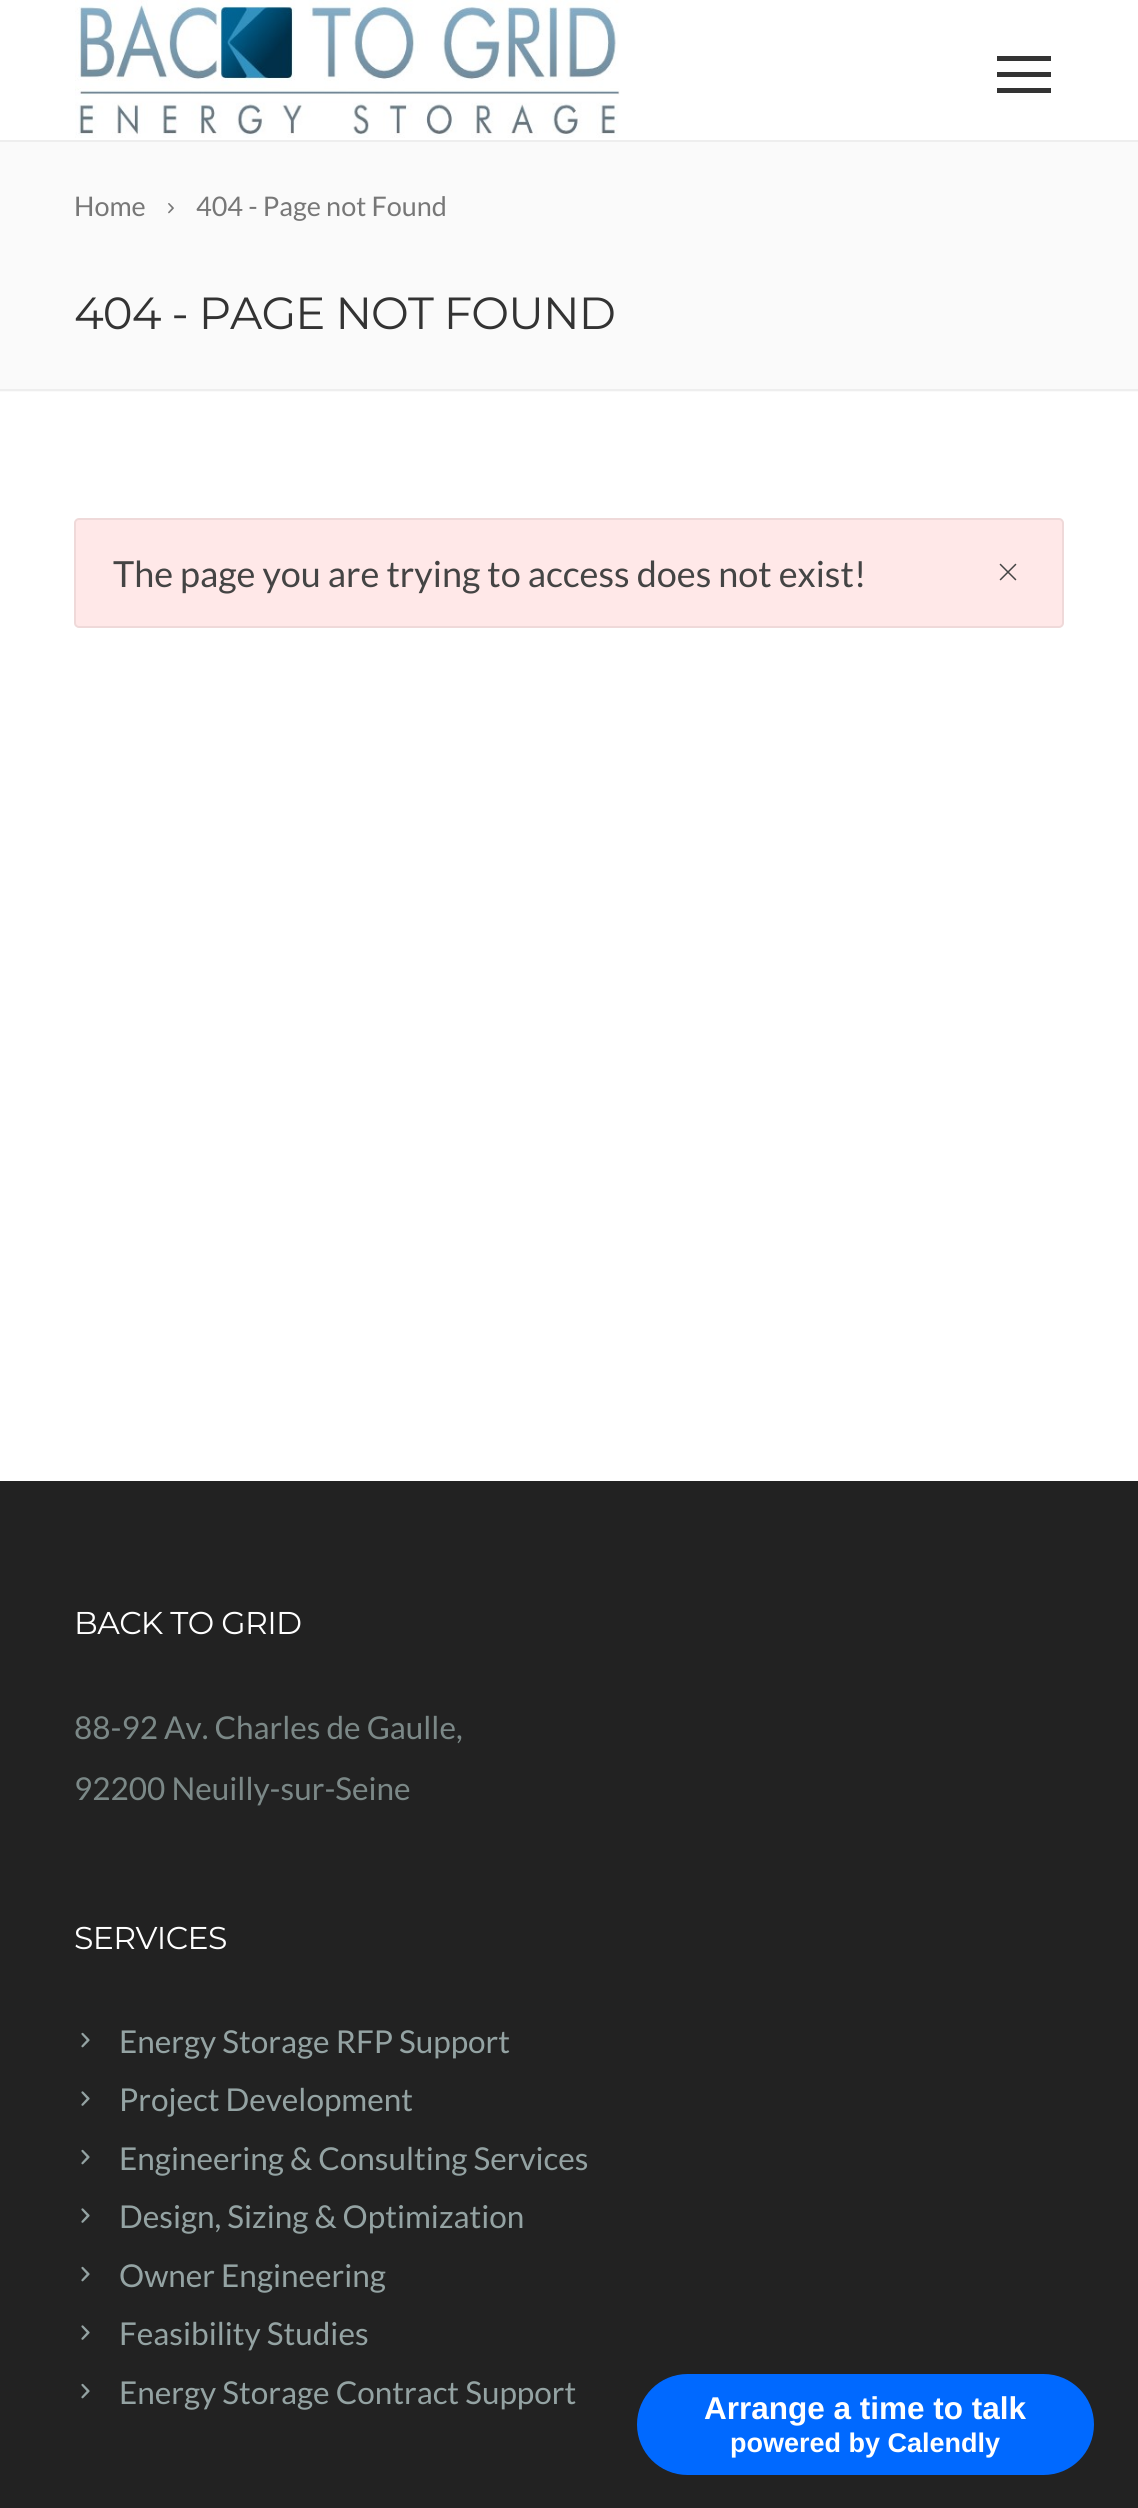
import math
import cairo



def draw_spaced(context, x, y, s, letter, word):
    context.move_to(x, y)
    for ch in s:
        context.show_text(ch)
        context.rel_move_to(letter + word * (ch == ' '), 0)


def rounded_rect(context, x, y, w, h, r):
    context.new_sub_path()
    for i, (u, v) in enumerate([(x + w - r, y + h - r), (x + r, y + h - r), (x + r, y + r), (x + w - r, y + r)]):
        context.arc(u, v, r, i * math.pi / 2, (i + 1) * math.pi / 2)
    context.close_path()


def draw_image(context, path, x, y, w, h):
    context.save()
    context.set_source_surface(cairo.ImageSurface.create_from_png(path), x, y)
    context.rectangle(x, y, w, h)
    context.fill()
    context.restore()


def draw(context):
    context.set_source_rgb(1, 1, 1)
    context.paint()
    context.rectangle(-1, -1, 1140, 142)
    context.set_source_rgb(238 / 255, 238 / 255, 238 / 255)
    context.stroke()
    draw_image(context, "images/1.png", 75, 0, 545, 138)
    context.set_source_rgb(51 / 255, 51 / 255, 51 / 255)
    context.rectangle(997, 56, 54, 5)
    context.fill()
    context.rectangle(997, 72, 54, 5)
    context.fill()
    context.rectangle(997, 88, 54, 5)
    context.fill()
    context.set_source_rgb(250 / 255, 250 / 255, 250 / 255)
    context.rectangle(0, 142, 1138, 250)
    context.fill()
    context.set_source_rgb(238 / 255, 238 / 255, 238 / 255)
    context.rectangle(0, 389, 1138, 2)
    context.fill()
    draw_image(context, "images/2.png", 168, 203, 6, 11)
    context.set_source_rgb(1, 232 / 255, 232 / 255)
    rounded_rect(context, 75, 519, 988, 108, 4)
    context.fill_preserve()
    context.set_source_rgb(239 / 255, 217 / 255, 217 / 255)
    context.stroke()
    draw_image(context, "images/3.png", 999, 563, 18, 18)
    context.set_source_rgb(34 / 255, 34 / 255, 34 / 255)
    context.rectangle(0, 1481, 1138, 1027)
    context.fill()
    draw_image(context, "images/4.png", 81, 2032, 9, 16)
    draw_image(context, "images/5.png", 81, 2091, 9, 15)
    draw_image(context, "images/4.png", 81, 2149, 9, 16)
    draw_image(context, "images/5.png", 81, 2208, 9, 15)
    draw_image(context, "images/4.png", 81, 2266, 9, 16)
    draw_image(context, "images/5.png", 81, 2325, 9, 15)
    draw_image(context, "images/4.png", 81, 2383, 9, 16)
    context.set_source_rgb(0, 105 / 255, 1)
    rounded_rect(context, 637, 2374, 457, 101, 50.5)
    context.fill()
    context.select_font_face("Lato")
    context.set_font_size(27)
    context.set_source_rgb(119 / 255, 119 / 255, 119 / 255)
    context.move_to(74, 216)
    context.show_text("Home")
    context.move_to(196, 216)
    context.show_text("404 - Page not Found")
    context.select_font_face("Montserrat")
    context.set_font_size(45)
    context.set_source_rgb(51 / 255, 51 / 255, 51 / 255)
    draw_spaced(context, 74, 329, "404 - PAGE NOT FOUND", -0.9, 0)
    context.select_font_face("Lato")
    context.set_font_size(36)
    context.set_source_rgb(68 / 255, 68 / 255, 68 / 255)
    context.move_to(113, 587)
    context.show_text("The page you are trying to access does not exist!")
    context.select_font_face("Montserrat")
    context.set_font_size(31.5)
    context.set_source_rgb(1, 1, 1)
    draw_spaced(context, 74, 1634, "BACK TO GRID", -0.6, 0)
    context.select_font_face("Lato")
    context.set_source_rgb(123 / 255, 136 / 255, 135 / 255)
    context.move_to(74, 1739)
    context.show_text("88-92 Av. Charles de Gaulle,")
    context.move_to(74, 1800)
    context.show_text("92200 Neuilly-sur-Seine")
    context.select_font_face("Montserrat")
    context.set_source_rgb(1, 1, 1)
    draw_spaced(context, 74, 1949, "SERVICES", -0.6, 0)
    context.select_font_face("Lato")
    context.set_source_rgb(148 / 255, 163 / 255, 163 / 255)
    context.move_to(119, 2053)
    context.show_text("Energy Storage RFP Support")
    context.move_to(119, 2111)
    context.show_text("Project Development")
    context.move_to(119, 2170)
    context.show_text("Engineering & Consulting Services")
    context.move_to(119, 2228)
    context.show_text("Design, Sizing & Optimization")
    context.move_to(119, 2287)
    context.show_text("Owner Engineering")
    context.move_to(119, 2345)
    context.show_text("Feasibility Studies")
    context.move_to(119, 2404)
    context.show_text("Energy Storage Contract Support")
    context.select_font_face("Liberation Sans", cairo.FontSlant.NORMAL, cairo.FontWeight.BOLD)
    context.set_source_rgb(1, 1, 1)
    context.move_to(704, 2419)
    context.show_text("Arrange a time to talk")
    context.set_font_size(27)
    context.move_to(730, 2452)
    context.show_text("powered by Calendly")


surface = cairo.ImageSurface(cairo.Format.RGB24, 1138, 2508)
context = cairo.Context(surface)
options = cairo.FontOptions()
options.set_hint_metrics(cairo.HintMetrics.OFF)
options.set_hint_style(cairo.HintStyle.NONE)
context.set_font_options(options)
context.set_miter_limit(4)
draw(context)
surface.write_to_png("out.png")
